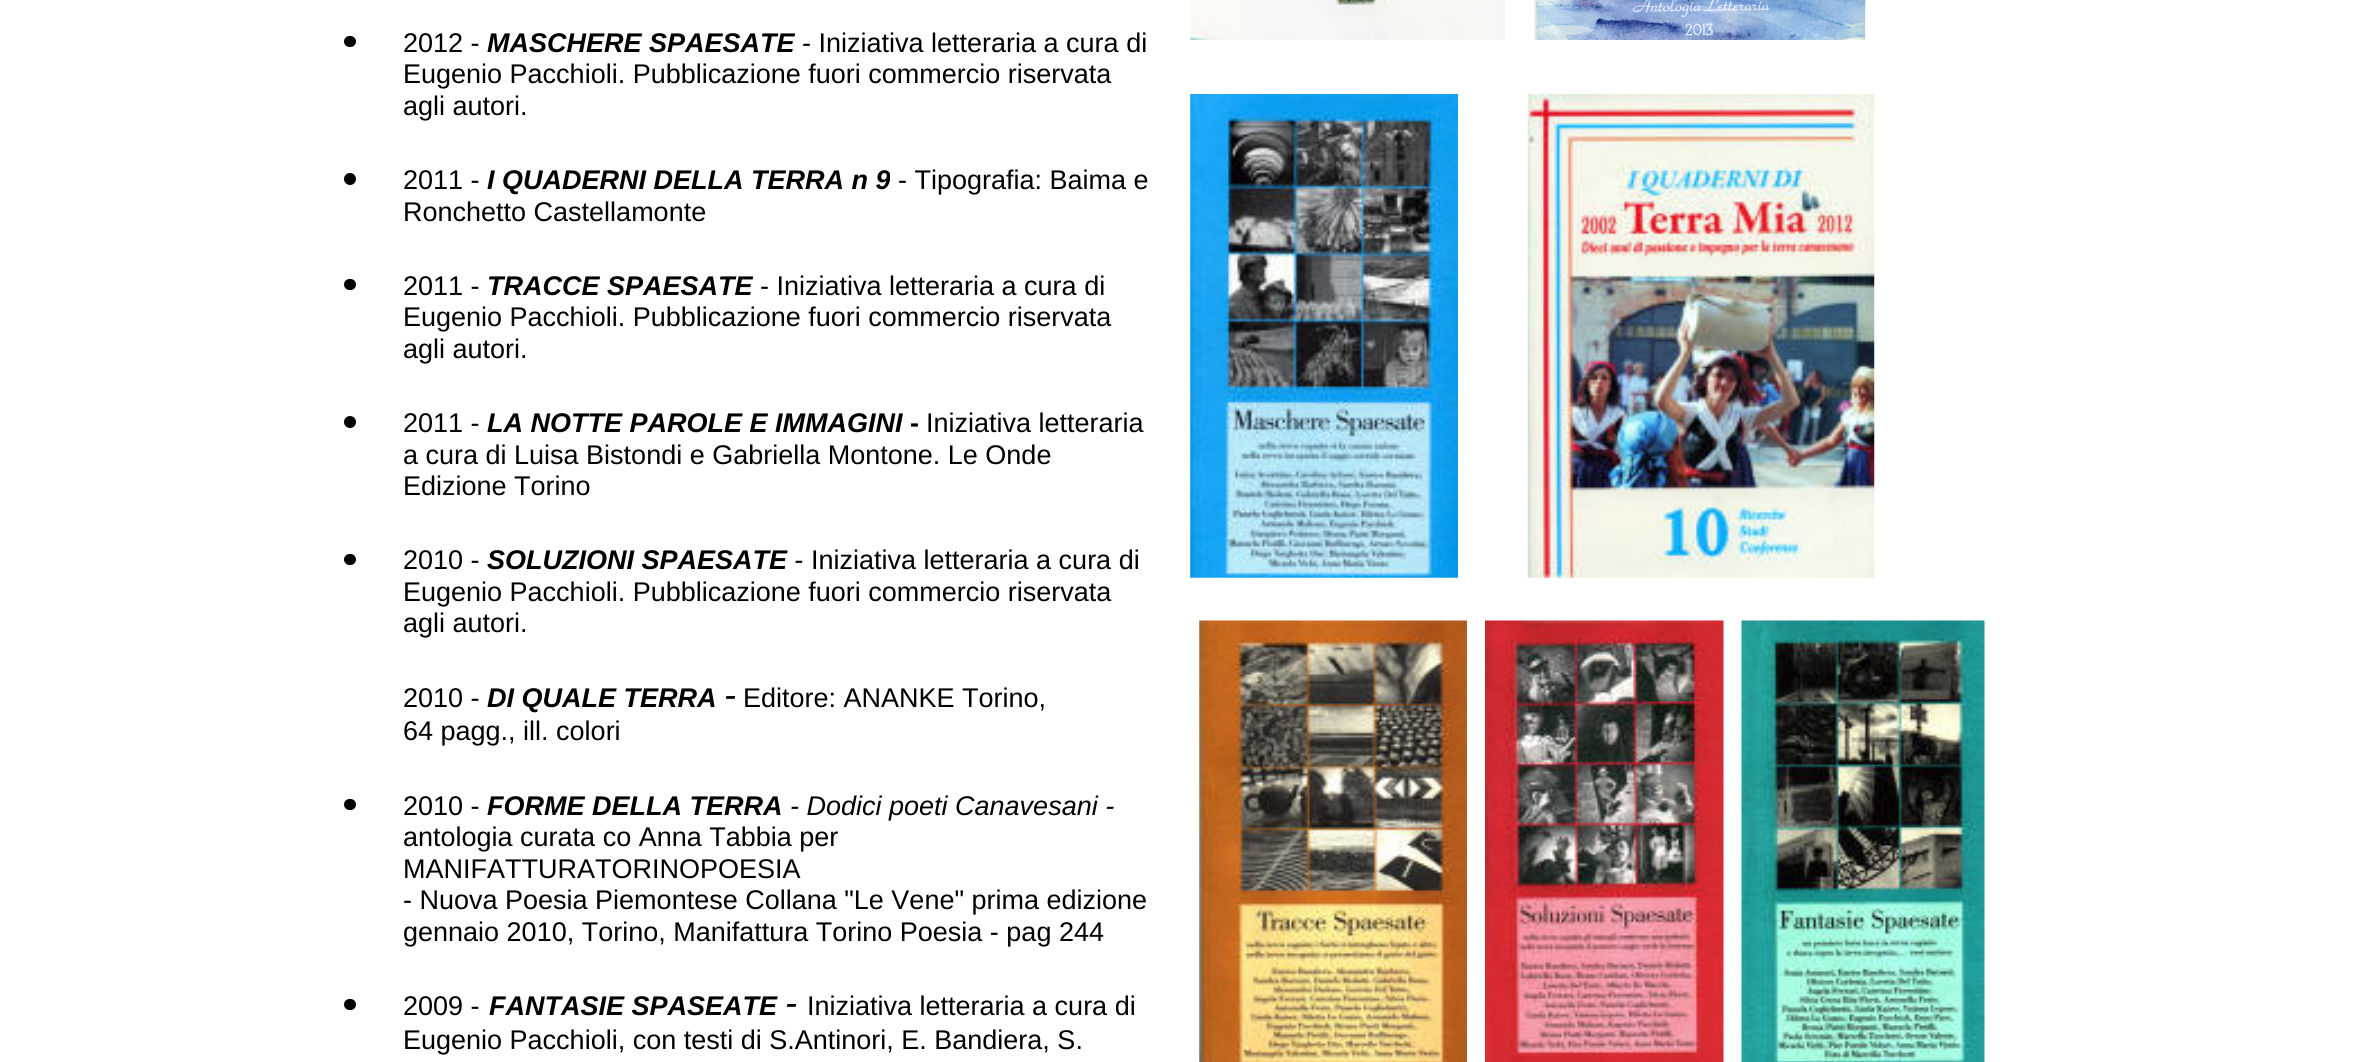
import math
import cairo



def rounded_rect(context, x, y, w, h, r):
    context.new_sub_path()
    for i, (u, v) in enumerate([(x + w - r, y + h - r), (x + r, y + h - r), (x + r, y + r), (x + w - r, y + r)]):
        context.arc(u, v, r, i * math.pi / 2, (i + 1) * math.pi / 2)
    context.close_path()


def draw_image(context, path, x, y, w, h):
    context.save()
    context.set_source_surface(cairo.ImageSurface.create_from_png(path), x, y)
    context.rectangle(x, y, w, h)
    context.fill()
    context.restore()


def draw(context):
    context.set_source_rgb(1, 1, 1)
    context.paint()
    draw_image(context, "images/1.png", 1190, 0, 315, 40)
    draw_image(context, "images/2.png", 1534, 0, 332, 40)
    context.set_source_rgb(0, 0, 0)
    rounded_rect(context, 344, 36, 12, 11, 5.5)
    context.fill()
    context.arc(350, 179, 6, 0, 2 * math.pi)
    context.fill()
    rounded_rect(context, 344, 279, 12, 11, 5.5)
    context.fill()
    context.arc(350, 422, 6, 0, 2 * math.pi)
    context.fill()
    rounded_rect(context, 344, 554, 12, 11, 5.5)
    context.fill()
    rounded_rect(context, 344, 799, 12, 11, 5.5)
    context.fill()
    rounded_rect(context, 344, 999, 12, 11, 5.5)
    context.fill()
    draw_image(context, "images/3.png", 1190, 94, 268, 484)
    draw_image(context, "images/4.png", 1527, 94, 348, 484)
    draw_image(context, "images/5.png", 1199, 620, 268, 442)
    draw_image(context, "images/6.png", 1485, 620, 239, 442)
    draw_image(context, "images/7.png", 1741, 620, 244, 442)
    context.select_font_face("Liberation Sans")
    context.set_font_size(27)
    context.move_to(403, 52)
    context.show_text("2012 -")
    context.select_font_face("Liberation Sans", cairo.FontSlant.ITALIC, cairo.FontWeight.BOLD)
    context.move_to(487, 52)
    context.show_text("MASCHERE SPAESATE")
    context.select_font_face("Liberation Sans")
    context.move_to(802, 52)
    context.show_text("- Iniziativa letteraria a cura di")
    context.move_to(403, 83)
    context.show_text("Eugenio Pacchioli. Pubblicazione fuori commercio riservata")
    context.move_to(403, 115)
    context.show_text("agli autori.")
    context.move_to(403, 189)
    context.show_text("2011 -")
    context.select_font_face("Liberation Sans", cairo.FontSlant.ITALIC, cairo.FontWeight.BOLD)
    context.move_to(487, 189)
    context.show_text("I QUADERNI DELLA TERRA n 9")
    context.select_font_face("Liberation Sans")
    context.move_to(898, 189)
    context.show_text("- Tipografia: Baima e")
    context.move_to(403, 221)
    context.show_text("Ronchetto Castellamonte")
    context.move_to(403, 295)
    context.show_text("2011 -")
    context.select_font_face("Liberation Sans", cairo.FontSlant.ITALIC, cairo.FontWeight.BOLD)
    context.move_to(487, 295)
    context.show_text("TRACCE SPAESATE")
    context.select_font_face("Liberation Sans")
    context.move_to(760, 295)
    context.show_text("- Iniziativa letteraria a cura di")
    context.move_to(403, 326)
    context.show_text("Eugenio Pacchioli. Pubblicazione fuori commercio riservata")
    context.move_to(403, 358)
    context.show_text("agli autori.")
    context.move_to(403, 432)
    context.show_text("2011 -")
    context.select_font_face("Liberation Sans", cairo.FontSlant.ITALIC, cairo.FontWeight.BOLD)
    context.move_to(487, 432)
    context.show_text("LA NOTTE PAROLE E IMMAGINI")
    context.select_font_face("Liberation Sans", cairo.FontSlant.NORMAL, cairo.FontWeight.BOLD)
    context.move_to(910, 432)
    context.show_text("-")
    context.select_font_face("Liberation Sans")
    context.move_to(926, 432)
    context.show_text("Iniziativa letteraria")
    context.move_to(403, 464)
    context.show_text("a cura di Luisa Bistondi e Gabriella Montone. Le Onde")
    context.move_to(403, 495)
    context.show_text("Edizione Torino")
    context.move_to(403, 569)
    context.show_text("2010 -")
    context.select_font_face("Liberation Sans", cairo.FontSlant.ITALIC, cairo.FontWeight.BOLD)
    context.move_to(487, 569)
    context.show_text("SOLUZIONI SPAESATE")
    context.select_font_face("Liberation Sans", cairo.FontSlant.ITALIC)
    context.move_to(794, 569)
    context.show_text("-")
    context.select_font_face("Liberation Sans")
    context.move_to(811, 569)
    context.show_text("Iniziativa letteraria a cura di")
    context.move_to(403, 601)
    context.show_text("Eugenio Pacchioli. Pubblicazione fuori commercio riservata")
    context.move_to(403, 632)
    context.show_text("agli autori.")
    context.move_to(403, 707)
    context.show_text("2010 -")
    context.select_font_face("Liberation Sans", cairo.FontSlant.ITALIC, cairo.FontWeight.BOLD)
    context.move_to(487, 707)
    context.show_text("DI QUALE TERRA")
    context.select_font_face("Liberation Sans", cairo.FontSlant.ITALIC)
    context.set_font_size(36)
    context.move_to(724, 707)
    context.show_text("-")
    context.select_font_face("Liberation Sans")
    context.set_font_size(27)
    context.move_to(743, 707)
    context.show_text("Editore: ANANKE Torino,")
    context.move_to(403, 740)
    context.show_text("64 pagg., ill. colori")
    context.move_to(403, 815)
    context.show_text("2010 -")
    context.select_font_face("Liberation Sans", cairo.FontSlant.ITALIC, cairo.FontWeight.BOLD)
    context.move_to(487, 815)
    context.show_text("FORME DELLA TERRA")
    context.select_font_face("Liberation Sans", cairo.FontSlant.ITALIC)
    context.move_to(790, 815)
    context.show_text("- Dodici poeti Canavesani -")
    context.select_font_face("Liberation Sans")
    context.move_to(403, 846)
    context.show_text("antologia curata co Anna Tabbia per")
    context.move_to(403, 878)
    context.show_text("MANIFATTURATORINOPOESIA")
    context.move_to(403, 909)
    context.show_text("- Nuova Poesia Piemontese Collana \"Le Vene\" prima edizione")
    context.move_to(403, 941)
    context.show_text("gennaio 2010, Torino, Manifattura Torino Poesia - pag 244")
    context.move_to(403, 1015)
    context.show_text("2009 -")
    context.select_font_face("Liberation Sans", cairo.FontSlant.ITALIC, cairo.FontWeight.BOLD)
    context.move_to(489, 1015)
    context.show_text("FANTASIE SPASEATE")
    context.select_font_face("Liberation Sans", cairo.FontSlant.ITALIC)
    context.set_font_size(36)
    context.move_to(785, 1015)
    context.show_text("-")
    context.select_font_face("Liberation Sans")
    context.set_font_size(27)
    context.move_to(807, 1015)
    context.show_text("Iniziativa letteraria a cura di")
    context.move_to(403, 1049)
    context.show_text("Eugenio Pacchioli, con testi di S.Antinori, E. Bandiera, S.")


surface = cairo.ImageSurface(cairo.Format.RGB24, 2366, 1062)
context = cairo.Context(surface)
options = cairo.FontOptions()
options.set_hint_metrics(cairo.HintMetrics.OFF)
options.set_hint_style(cairo.HintStyle.NONE)
context.set_font_options(options)
context.set_miter_limit(4)
draw(context)
surface.write_to_png("out.png")
